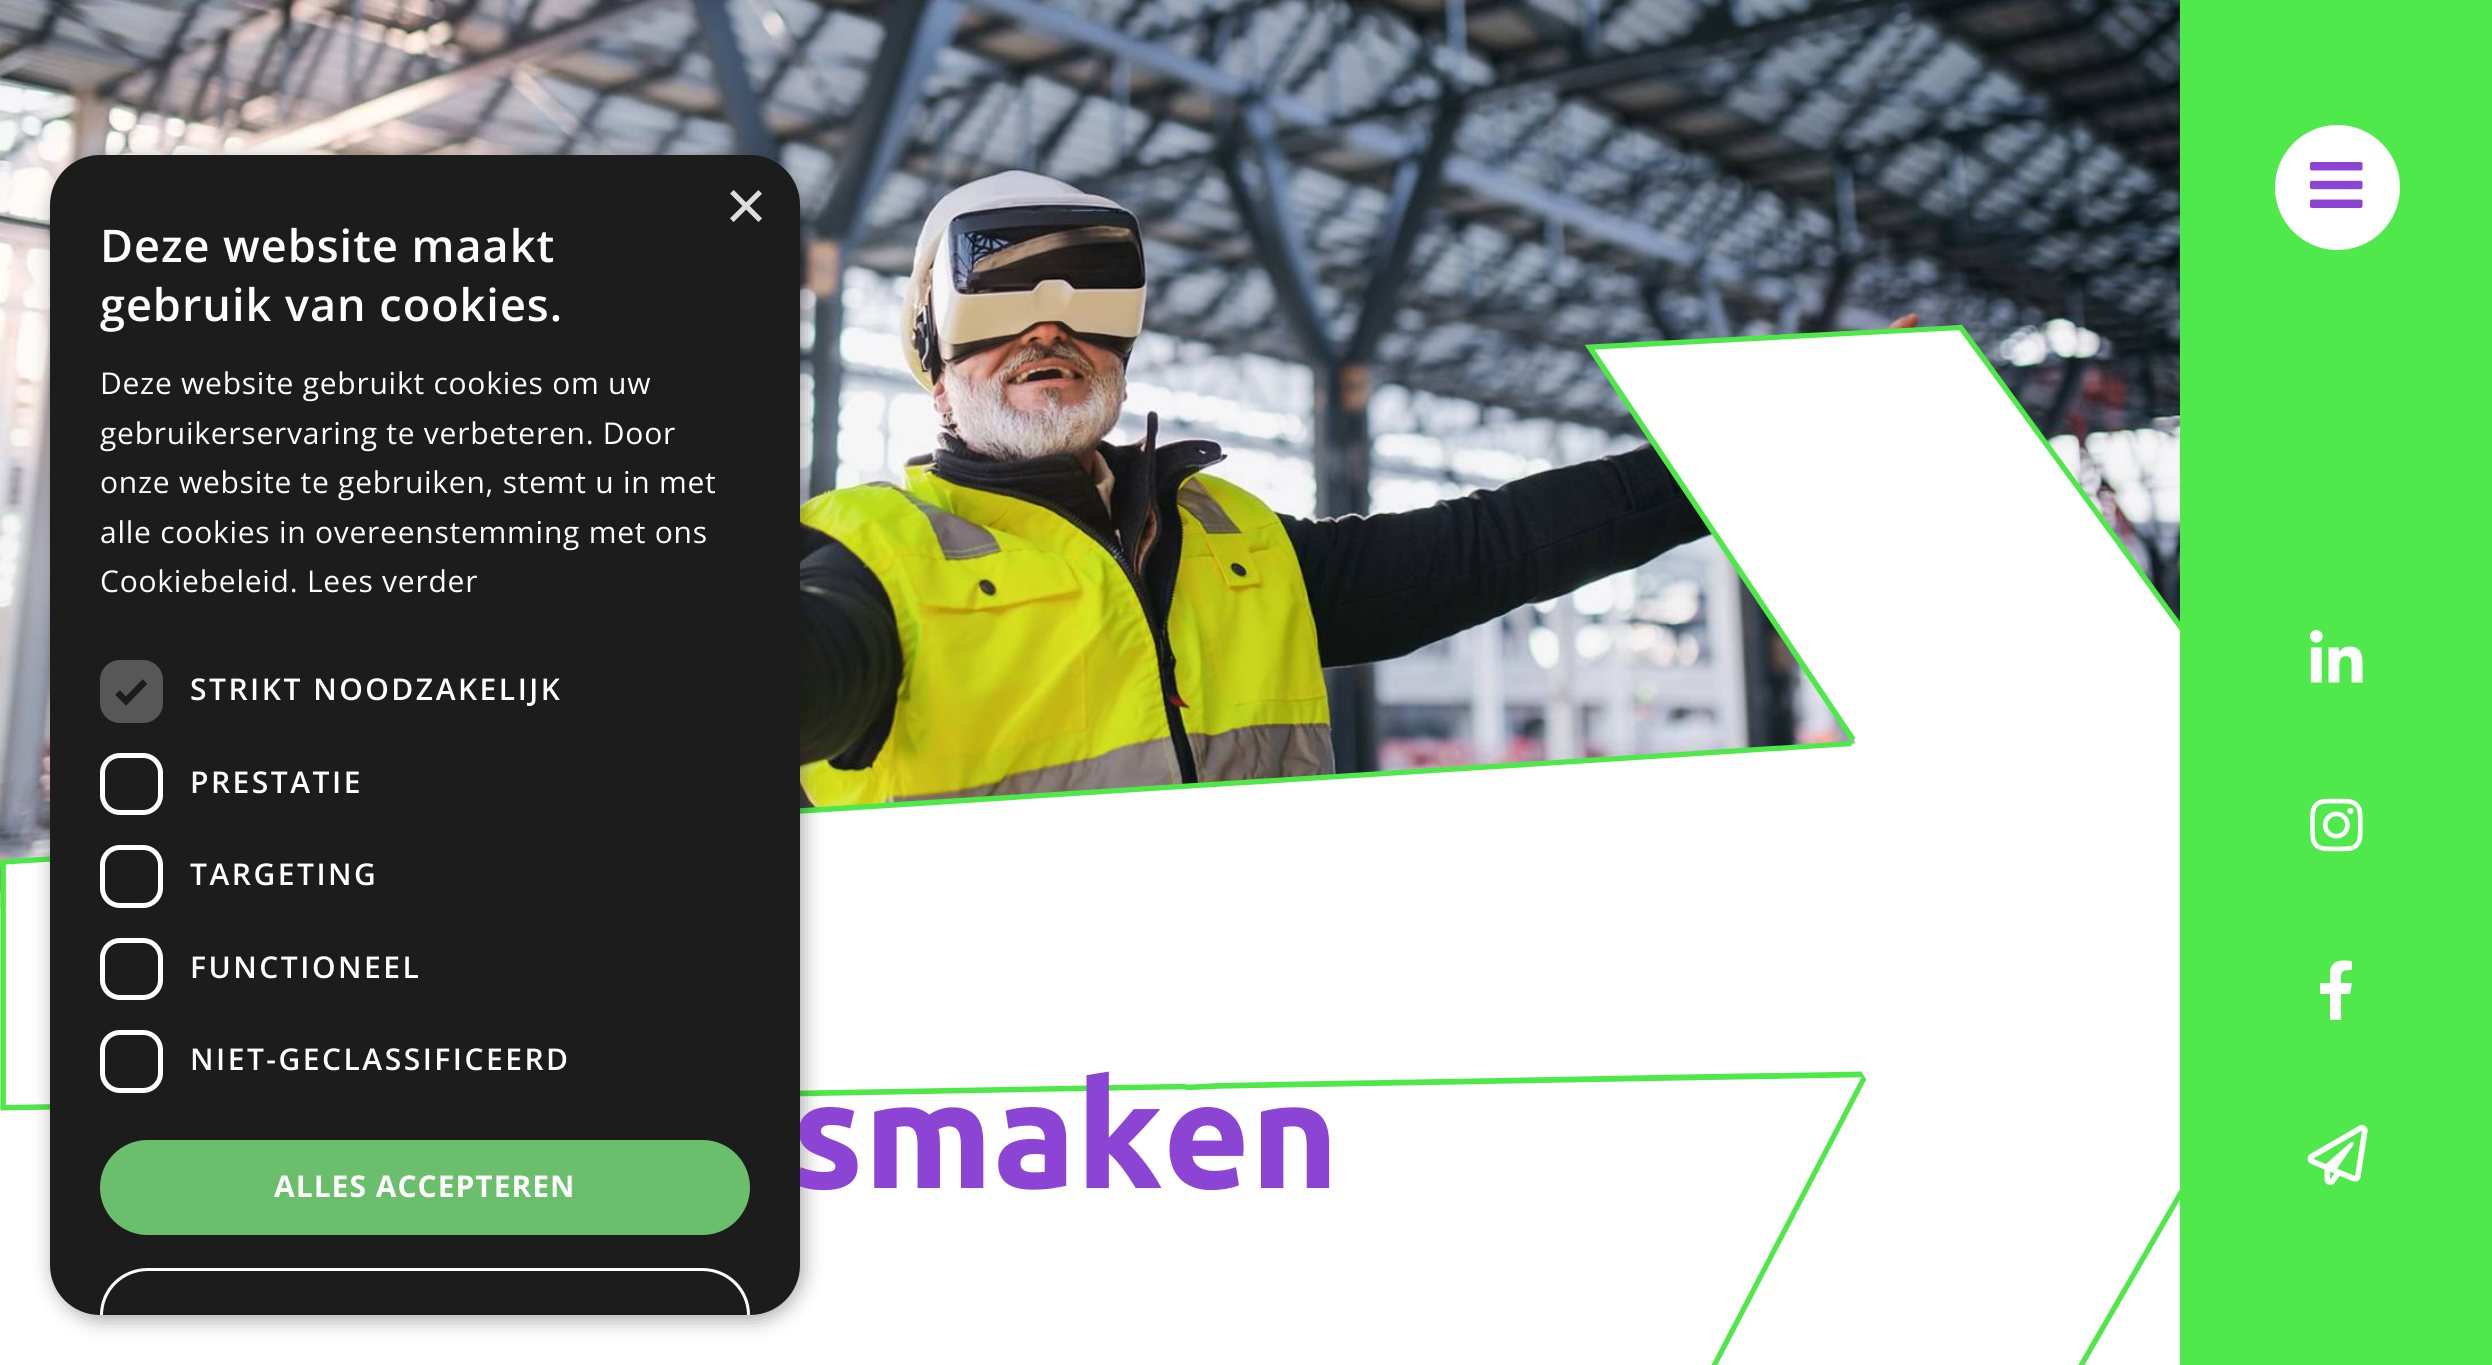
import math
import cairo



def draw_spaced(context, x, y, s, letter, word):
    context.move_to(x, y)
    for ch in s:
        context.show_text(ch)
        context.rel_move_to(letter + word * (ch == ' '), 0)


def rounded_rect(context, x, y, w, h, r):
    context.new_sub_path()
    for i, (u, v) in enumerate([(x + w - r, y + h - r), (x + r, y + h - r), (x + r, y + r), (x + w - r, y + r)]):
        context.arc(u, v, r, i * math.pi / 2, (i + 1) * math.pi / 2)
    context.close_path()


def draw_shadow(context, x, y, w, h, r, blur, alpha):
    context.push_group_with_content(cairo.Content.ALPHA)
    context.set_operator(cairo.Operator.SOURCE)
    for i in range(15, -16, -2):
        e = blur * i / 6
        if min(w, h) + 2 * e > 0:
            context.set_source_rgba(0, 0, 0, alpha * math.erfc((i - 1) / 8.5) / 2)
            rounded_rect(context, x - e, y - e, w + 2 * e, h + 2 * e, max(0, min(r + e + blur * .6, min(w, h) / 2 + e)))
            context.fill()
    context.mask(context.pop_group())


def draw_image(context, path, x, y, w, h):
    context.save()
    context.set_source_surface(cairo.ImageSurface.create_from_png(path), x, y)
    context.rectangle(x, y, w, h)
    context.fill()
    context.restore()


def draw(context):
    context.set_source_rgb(1, 1, 1)
    context.paint()
    draw_image(context, "images/1.png", 0, 0, 2180, 908)
    draw_image(context, "images/2.png", 0, 324, 2180, 1041)
    context.set_source_rgb(0, 0, 0)
    draw_shadow(context, 53, 160, 750, 1160, 50, 10, 0.35)
    context.set_source_rgb(79 / 255, 233 / 255, 75 / 255)
    context.rectangle(2180, 0, 312, 1365)
    context.fill()
    context.set_source_rgb(1, 1, 1)
    context.arc(2337.5, 187.5, 62.5, 0, 2 * math.pi)
    context.fill()
    draw_image(context, "images/3.png", 2310, 162, 53, 46)
    draw_image(context, "images/4.png", 2310, 630, 53, 53)
    draw_image(context, "images/5.png", 2310, 798, 53, 54)
    context.new_path()
    context.move_to(2350, 994)
    context.line_to(2341, 994)
    context.line_to(2341, 1020)
    context.line_to(2330, 1020)
    context.line_to(2330, 994)
    context.line_to(2320, 994)
    context.line_to(2320, 983)
    context.line_to(2330, 983)
    context.line_to(2330, 971)
    context.curve_to(2332, 959, 2343, 960, 2352, 961)
    context.line_to(2352, 970)
    context.curve_to(2340, 970, 2341, 972, 2341, 983)
    context.line_to(2352, 983)
    context.close_path()
    context.fill()
    draw_image(context, "images/6.png", 2307, 1125, 61, 60)
    context.select_font_face("Ubuntu", cairo.FontSlant.NORMAL, cairo.FontWeight.BOLD)
    context.set_font_size(150)
    context.set_source_rgb(139 / 255, 68 / 255, 211 / 255)
    context.move_to(791, 1188)
    context.show_text("smaken")
    context.set_source_rgb(28 / 255, 28 / 255, 28 / 255)
    rounded_rect(context, 50, 155, 750, 1160, 50)
    context.fill()
    context.select_font_face("Liberation Sans")
    context.set_font_size(72)
    context.set_source_rgb(221 / 255, 221 / 255, 221 / 255)
    context.move_to(725, 230)
    context.show_text("×")
    rounded_rect(context, 102.5, 1032.5, 58, 58, 17.5)
    context.set_source_rgb(1, 1, 1)
    context.set_line_width(5)
    context.stroke()
    rounded_rect(context, 102.5, 940.5, 58, 57, 17.5)
    context.stroke()
    rounded_rect(context, 102.5, 847.5, 58, 58, 17.5)
    context.stroke()
    rounded_rect(context, 102.5, 755.5, 58, 57, 17.5)
    context.stroke()
    context.set_source_rgb(87 / 255, 87 / 255, 87 / 255)
    rounded_rect(context, 100, 660, 63, 63, 20)
    context.fill()
    context.new_path()
    context.move_to(117.5, 692.5)
    context.line_to(126, 701)
    context.line_to(145, 681.5)
    context.set_source_rgb(28 / 255, 28 / 255, 28 / 255)
    context.set_line_width(6.6)
    context.stroke()
    context.set_source_rgb(1, 1, 1)
    context.new_path()
    context.move_to(148, 1268)
    context.curve_to(121, 1268, 100, 1289, 100, 1315)
    context.line_to(103, 1315)
    context.curve_to(103, 1291, 123, 1271, 148, 1271)
    context.line_to(702, 1271)
    context.curve_to(727, 1271, 747, 1291, 747, 1315)
    context.line_to(750, 1315)
    context.curve_to(750, 1289, 729, 1268, 702, 1268)
    context.close_path()
    context.fill()
    context.set_source_rgb(107 / 255, 190 / 255, 107 / 255)
    rounded_rect(context, 100, 1140, 650, 95, 47.5)
    context.fill()
    context.select_font_face("Open Sans", cairo.FontSlant.NORMAL, cairo.FontWeight.BOLD)
    context.set_font_size(30)
    context.set_source_rgb(1, 1, 1)
    draw_spaced(context, 274, 1197, "ALLES ACCEPTEREN", 1, 0)
    context.select_font_face("Open Sans SemiBold")
    draw_spaced(context, 190, 1070, "NIET-GECLASSIFICEERD", 2.5, 0)
    draw_spaced(context, 190, 978, "FUNCTIONEEL", 2.5, 0)
    draw_spaced(context, 190, 885, "TARGETING", 2.5, 0)
    draw_spaced(context, 190, 793, "PRESTATIE", 2.5, 0)
    draw_spaced(context, 190, 700, "STRIKT NOODZAKELIJK", 2.5, 0)
    context.select_font_face("Open Sans")
    draw_spaced(context, 100, 592, "Cookiebeleid. Lees verder", 0.75, 0)
    draw_spaced(context, 100, 543, "alle cookies in overeenstemming met ons", 0.75, 0)
    draw_spaced(context, 100, 493, "onze website te gebruiken, stemt u in met", 0.75, 0)
    draw_spaced(context, 100, 444, "gebruikerservaring te verbeteren. Door", 0.75, 0)
    draw_spaced(context, 100, 394, "Deze website gebruikt cookies om uw", 0.75, 0)
    context.select_font_face("Open Sans SemiBold")
    context.set_font_size(45)
    draw_spaced(context, 100, 321, "gebruik van cookies.", 1, 0)
    draw_spaced(context, 100, 262, "Deze website maakt", 1, 0)


surface = cairo.ImageSurface(cairo.Format.RGB24, 2492, 1365)
context = cairo.Context(surface)
options = cairo.FontOptions()
options.set_hint_metrics(cairo.HintMetrics.OFF)
options.set_hint_style(cairo.HintStyle.NONE)
context.set_font_options(options)
context.set_miter_limit(4)
draw(context)
surface.write_to_png("out.png")
